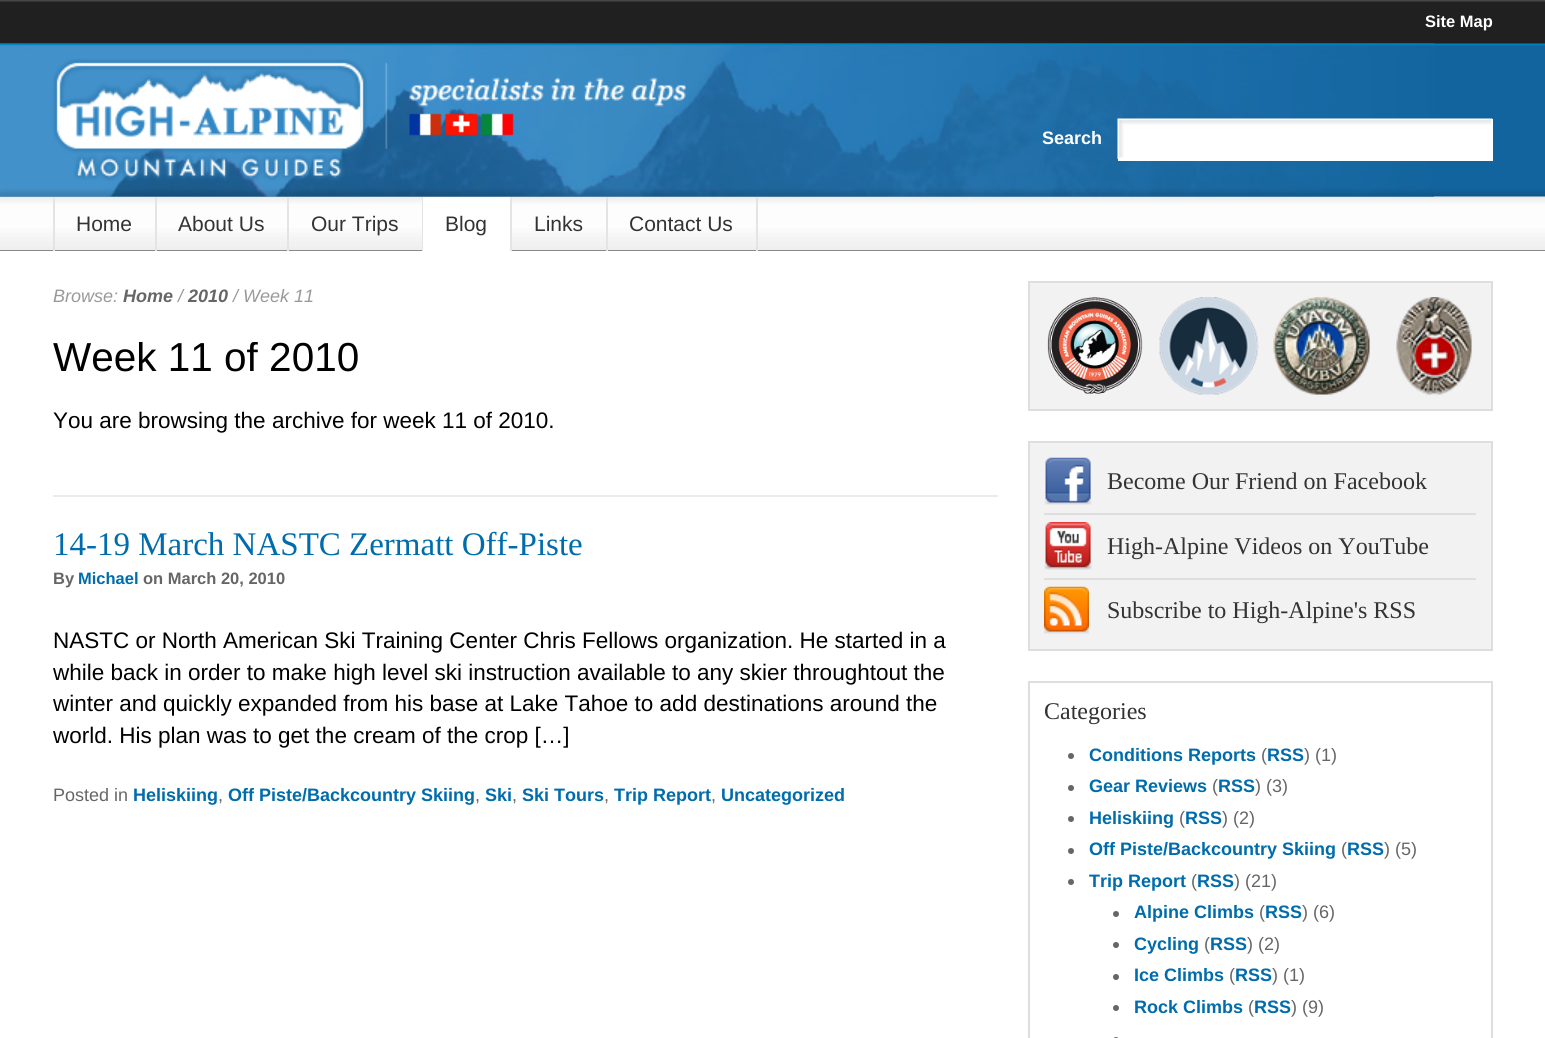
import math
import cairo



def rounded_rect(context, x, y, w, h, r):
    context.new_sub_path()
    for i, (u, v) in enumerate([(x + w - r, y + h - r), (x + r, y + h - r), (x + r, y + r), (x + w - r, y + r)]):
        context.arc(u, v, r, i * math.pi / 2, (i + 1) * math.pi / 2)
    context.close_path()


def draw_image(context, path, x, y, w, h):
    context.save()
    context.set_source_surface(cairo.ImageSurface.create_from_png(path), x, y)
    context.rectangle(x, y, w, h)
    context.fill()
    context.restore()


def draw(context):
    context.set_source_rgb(37 / 255, 37 / 255, 37 / 255)
    context.paint()
    draw_image(context, "images/1.png", 0, 0, 1545, 251)
    draw_image(context, "images/2.png", 0, 43, 1434, 154)
    draw_image(context, "images/3.png", 53, 59, 633, 122)
    context.set_source_rgb(1, 1, 1)
    context.rectangle(1118, 119, 375, 42)
    context.fill()
    draw_image(context, "images/4.png", 1117, 118, 376, 41)
    context.set_source_rgb(228 / 255, 228 / 255, 228 / 255)
    context.rectangle(53, 197, 2, 54)
    context.fill()
    context.rectangle(155, 197, 2, 54)
    context.fill()
    context.rectangle(287, 197, 2, 54)
    context.fill()
    context.rectangle(422, 197, 1, 54)
    context.fill()
    context.set_source_rgb(1, 1, 1)
    context.rectangle(423, 197, 87, 54)
    context.fill()
    context.set_source_rgb(228 / 255, 228 / 255, 228 / 255)
    context.rectangle(510, 197, 2, 54)
    context.fill()
    context.rectangle(606, 197, 2, 54)
    context.fill()
    context.rectangle(756, 197, 2, 54)
    context.fill()
    context.set_source_rgb(1, 1, 1)
    context.rectangle(0, 251, 1545, 787)
    context.fill()
    context.set_source_rgb(235 / 255, 235 / 255, 235 / 255)
    context.rectangle(53, 495, 945, 2)
    context.fill()
    context.set_source_rgb(242 / 255, 242 / 255, 242 / 255)
    context.rectangle(1029, 282, 463, 128)
    context.fill_preserve()
    context.set_source_rgb(222 / 255, 222 / 255, 222 / 255)
    context.stroke()
    draw_image(context, "images/5.png", 1047, 297, 96, 97)
    draw_image(context, "images/6.png", 1159, 297, 100, 98)
    draw_image(context, "images/7.png", 1273, 297, 97, 98)
    draw_image(context, "images/8.png", 1396, 297, 76, 98)
    context.set_source_rgb(242 / 255, 242 / 255, 242 / 255)
    context.rectangle(1029, 442, 463, 208)
    context.fill_preserve()
    context.set_source_rgb(222 / 255, 222 / 255, 222 / 255)
    context.stroke()
    context.rectangle(1044, 513, 432, 2)
    context.fill()
    draw_image(context, "images/9.png", 1044, 457, 48, 48)
    context.rectangle(1044, 578, 432, 2)
    context.fill()
    draw_image(context, "images/10.png", 1044, 522, 48, 48)
    draw_image(context, "images/11.png", 1044, 586, 45, 48)
    context.rectangle(1029, 682, 463, 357)
    context.stroke()
    context.set_source_rgb(102 / 255, 102 / 255, 102 / 255)
    context.arc(1071, 756, 3, 0, 2 * math.pi)
    context.fill()
    context.arc(1071, 788, 3, 0, 2 * math.pi)
    context.fill()
    context.arc(1071, 819, 3, 0, 2 * math.pi)
    context.fill()
    context.arc(1071, 851, 3, 0, 2 * math.pi)
    context.fill()
    context.arc(1071, 882, 3, 0, 2 * math.pi)
    context.fill()
    context.arc(1116, 914, 3, 0, 2 * math.pi)
    context.fill()
    context.arc(1116, 945, 3, 0, 2 * math.pi)
    context.fill()
    context.arc(1116, 977, 3, 0, 2 * math.pi)
    context.fill()
    context.arc(1116, 1008, 3, 0, 2 * math.pi)
    context.fill()
    rounded_rect(context, 1113, 1037, 6, 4, 3)
    context.fill()
    context.select_font_face("Liberation Sans", cairo.FontSlant.NORMAL, cairo.FontWeight.BOLD)
    context.set_font_size(16.5)
    context.set_source_rgb(1, 1, 1)
    context.move_to(1425, 27)
    context.show_text("Site Map")
    context.set_font_size(18)
    context.move_to(1042, 144)
    context.show_text("Search")
    context.select_font_face("Liberation Sans")
    context.set_font_size(21)
    context.set_source_rgb(51 / 255, 51 / 255, 51 / 255)
    context.move_to(76, 231)
    context.show_text("Home")
    context.move_to(178, 231)
    context.show_text("About Us")
    context.move_to(311, 231)
    context.show_text("Our Trips")
    context.move_to(445, 231)
    context.show_text("Blog")
    context.move_to(534, 231)
    context.show_text("Links")
    context.move_to(629, 231)
    context.show_text("Contact Us")
    context.select_font_face("Liberation Sans", cairo.FontSlant.ITALIC)
    context.set_font_size(18)
    context.set_source_rgb(153 / 255, 153 / 255, 153 / 255)
    context.move_to(53, 302)
    context.show_text("Browse:")
    context.select_font_face("Liberation Sans", cairo.FontSlant.ITALIC, cairo.FontWeight.BOLD)
    context.set_source_rgb(102 / 255, 102 / 255, 102 / 255)
    context.move_to(123, 302)
    context.show_text("Home")
    context.select_font_face("Liberation Sans", cairo.FontSlant.ITALIC)
    context.set_source_rgb(153 / 255, 153 / 255, 153 / 255)
    context.move_to(178, 302)
    context.show_text("/")
    context.select_font_face("Liberation Sans", cairo.FontSlant.ITALIC, cairo.FontWeight.BOLD)
    context.set_source_rgb(102 / 255, 102 / 255, 102 / 255)
    context.move_to(188, 302)
    context.show_text("2010")
    context.select_font_face("Liberation Sans", cairo.FontSlant.ITALIC)
    context.set_source_rgb(153 / 255, 153 / 255, 153 / 255)
    context.move_to(233, 302)
    context.show_text("/ Week 11")
    context.save()
    context.rectangle(53, 342, 945, 123)
    context.clip()
    context.select_font_face("Liberation Sans")
    context.set_font_size(40.5)
    context.set_source_rgb(0, 0, 0)
    context.move_to(53, 371)
    context.show_text("Week 11 of 2010")
    context.restore()
    context.select_font_face("Liberation Sans")
    context.set_font_size(22.5)
    context.set_source_rgb(0, 0, 0)
    context.move_to(53, 428)
    context.show_text("You are browsing the archive for week 11 of 2010.")
    context.select_font_face("Liberation Serif")
    context.set_font_size(33)
    context.set_source_rgb(0, 108 / 255, 172 / 255)
    context.move_to(53, 555)
    context.show_text("14-19 March NASTC Zermatt Off-Piste")
    context.select_font_face("Liberation Sans", cairo.FontSlant.NORMAL, cairo.FontWeight.BOLD)
    context.set_font_size(16.5)
    context.set_source_rgb(102 / 255, 102 / 255, 102 / 255)
    context.move_to(53, 584)
    context.show_text("By")
    context.set_source_rgb(0, 108 / 255, 172 / 255)
    context.move_to(78, 584)
    context.show_text("Michael")
    context.set_source_rgb(102 / 255, 102 / 255, 102 / 255)
    context.move_to(143, 584)
    context.show_text("on March 20, 2010")
    context.select_font_face("Liberation Sans")
    context.set_font_size(22.5)
    context.set_source_rgb(0, 0, 0)
    context.move_to(53, 648)
    context.show_text("NASTC or North American Ski Training Center Chris Fellows organization. He started in a")
    context.move_to(53, 680)
    context.show_text("while back in order to make high level ski instruction available to any skier throughtout the")
    context.move_to(53, 711)
    context.show_text("winter and quickly expanded from his base at Lake Tahoe to add destinations around the")
    context.move_to(53, 743)
    context.show_text("world. His plan was to get the cream of the crop […]")
    context.set_font_size(18)
    context.set_source_rgb(102 / 255, 102 / 255, 102 / 255)
    context.move_to(53, 801)
    context.show_text("Posted in")
    context.select_font_face("Liberation Sans", cairo.FontSlant.NORMAL, cairo.FontWeight.BOLD)
    context.set_source_rgb(0, 108 / 255, 172 / 255)
    context.move_to(133, 801)
    context.show_text("Heliskiing")
    context.select_font_face("Liberation Sans")
    context.set_source_rgb(102 / 255, 102 / 255, 102 / 255)
    context.move_to(218, 801)
    context.show_text(",")
    context.select_font_face("Liberation Sans", cairo.FontSlant.NORMAL, cairo.FontWeight.BOLD)
    context.set_source_rgb(0, 108 / 255, 172 / 255)
    context.move_to(228, 801)
    context.show_text("Off Piste/Backcountry Skiing")
    context.select_font_face("Liberation Sans")
    context.set_source_rgb(102 / 255, 102 / 255, 102 / 255)
    context.move_to(475, 801)
    context.show_text(",")
    context.select_font_face("Liberation Sans", cairo.FontSlant.NORMAL, cairo.FontWeight.BOLD)
    context.set_source_rgb(0, 108 / 255, 172 / 255)
    context.move_to(485, 801)
    context.show_text("Ski")
    context.select_font_face("Liberation Sans")
    context.set_source_rgb(102 / 255, 102 / 255, 102 / 255)
    context.move_to(512, 801)
    context.show_text(",")
    context.select_font_face("Liberation Sans", cairo.FontSlant.NORMAL, cairo.FontWeight.BOLD)
    context.set_source_rgb(0, 108 / 255, 172 / 255)
    context.move_to(522, 801)
    context.show_text("Ski Tours")
    context.select_font_face("Liberation Sans")
    context.set_source_rgb(102 / 255, 102 / 255, 102 / 255)
    context.move_to(604, 801)
    context.show_text(",")
    context.select_font_face("Liberation Sans", cairo.FontSlant.NORMAL, cairo.FontWeight.BOLD)
    context.set_source_rgb(0, 108 / 255, 172 / 255)
    context.move_to(614, 801)
    context.show_text("Trip Report")
    context.select_font_face("Liberation Sans")
    context.set_source_rgb(102 / 255, 102 / 255, 102 / 255)
    context.move_to(711, 801)
    context.show_text(",")
    context.select_font_face("Liberation Sans", cairo.FontSlant.NORMAL, cairo.FontWeight.BOLD)
    context.set_source_rgb(0, 108 / 255, 172 / 255)
    context.move_to(721, 801)
    context.show_text("Uncategorized")
    context.select_font_face("Liberation Serif")
    context.set_font_size(24)
    context.set_source_rgb(51 / 255, 51 / 255, 51 / 255)
    context.move_to(1107, 489)
    context.show_text("Become Our Friend on Facebook")
    context.move_to(1107, 554)
    context.show_text("High-Alpine Videos on YouTube")
    context.move_to(1107, 618)
    context.show_text("Subscribe to High-Alpine's RSS")
    context.move_to(1044, 719)
    context.show_text("Categories")
    context.select_font_face("Liberation Sans", cairo.FontSlant.NORMAL, cairo.FontWeight.BOLD)
    context.set_font_size(18)
    context.set_source_rgb(0, 108 / 255, 172 / 255)
    context.move_to(1089, 761)
    context.show_text("Conditions Reports")
    context.select_font_face("Liberation Sans")
    context.set_source_rgb(102 / 255, 102 / 255, 102 / 255)
    context.move_to(1261, 761)
    context.show_text("(")
    context.select_font_face("Liberation Sans", cairo.FontSlant.NORMAL, cairo.FontWeight.BOLD)
    context.set_source_rgb(0, 108 / 255, 172 / 255)
    context.move_to(1267, 761)
    context.show_text("RSS")
    context.select_font_face("Liberation Sans")
    context.set_source_rgb(102 / 255, 102 / 255, 102 / 255)
    context.move_to(1304, 761)
    context.show_text(") (1)")
    context.select_font_face("Liberation Sans", cairo.FontSlant.NORMAL, cairo.FontWeight.BOLD)
    context.set_source_rgb(0, 108 / 255, 172 / 255)
    context.move_to(1089, 792)
    context.show_text("Gear Reviews")
    context.select_font_face("Liberation Sans")
    context.set_source_rgb(102 / 255, 102 / 255, 102 / 255)
    context.move_to(1212, 792)
    context.show_text("(")
    context.select_font_face("Liberation Sans", cairo.FontSlant.NORMAL, cairo.FontWeight.BOLD)
    context.set_source_rgb(0, 108 / 255, 172 / 255)
    context.move_to(1218, 792)
    context.show_text("RSS")
    context.select_font_face("Liberation Sans")
    context.set_source_rgb(102 / 255, 102 / 255, 102 / 255)
    context.move_to(1255, 792)
    context.show_text(") (3)")
    context.select_font_face("Liberation Sans", cairo.FontSlant.NORMAL, cairo.FontWeight.BOLD)
    context.set_source_rgb(0, 108 / 255, 172 / 255)
    context.move_to(1089, 824)
    context.show_text("Heliskiing")
    context.select_font_face("Liberation Sans")
    context.set_source_rgb(102 / 255, 102 / 255, 102 / 255)
    context.move_to(1179, 824)
    context.show_text("(")
    context.select_font_face("Liberation Sans", cairo.FontSlant.NORMAL, cairo.FontWeight.BOLD)
    context.set_source_rgb(0, 108 / 255, 172 / 255)
    context.move_to(1185, 824)
    context.show_text("RSS")
    context.select_font_face("Liberation Sans")
    context.set_source_rgb(102 / 255, 102 / 255, 102 / 255)
    context.move_to(1222, 824)
    context.show_text(") (2)")
    context.select_font_face("Liberation Sans", cairo.FontSlant.NORMAL, cairo.FontWeight.BOLD)
    context.set_source_rgb(0, 108 / 255, 172 / 255)
    context.move_to(1089, 855)
    context.show_text("Off Piste/Backcountry Skiing")
    context.select_font_face("Liberation Sans")
    context.set_source_rgb(102 / 255, 102 / 255, 102 / 255)
    context.move_to(1341, 855)
    context.show_text("(")
    context.select_font_face("Liberation Sans", cairo.FontSlant.NORMAL, cairo.FontWeight.BOLD)
    context.set_source_rgb(0, 108 / 255, 172 / 255)
    context.move_to(1347, 855)
    context.show_text("RSS")
    context.select_font_face("Liberation Sans")
    context.set_source_rgb(102 / 255, 102 / 255, 102 / 255)
    context.move_to(1384, 855)
    context.show_text(") (5)")
    context.select_font_face("Liberation Sans", cairo.FontSlant.NORMAL, cairo.FontWeight.BOLD)
    context.set_source_rgb(0, 108 / 255, 172 / 255)
    context.move_to(1089, 887)
    context.show_text("Trip Report")
    context.select_font_face("Liberation Sans")
    context.set_source_rgb(102 / 255, 102 / 255, 102 / 255)
    context.move_to(1191, 887)
    context.show_text("(")
    context.select_font_face("Liberation Sans", cairo.FontSlant.NORMAL, cairo.FontWeight.BOLD)
    context.set_source_rgb(0, 108 / 255, 172 / 255)
    context.move_to(1197, 887)
    context.show_text("RSS")
    context.select_font_face("Liberation Sans")
    context.set_source_rgb(102 / 255, 102 / 255, 102 / 255)
    context.move_to(1234, 887)
    context.show_text(") (21)")
    context.select_font_face("Liberation Sans", cairo.FontSlant.NORMAL, cairo.FontWeight.BOLD)
    context.set_source_rgb(0, 108 / 255, 172 / 255)
    context.move_to(1134, 918)
    context.show_text("Alpine Climbs")
    context.select_font_face("Liberation Sans")
    context.set_source_rgb(102 / 255, 102 / 255, 102 / 255)
    context.move_to(1259, 918)
    context.show_text("(")
    context.select_font_face("Liberation Sans", cairo.FontSlant.NORMAL, cairo.FontWeight.BOLD)
    context.set_source_rgb(0, 108 / 255, 172 / 255)
    context.move_to(1265, 918)
    context.show_text("RSS")
    context.select_font_face("Liberation Sans")
    context.set_source_rgb(102 / 255, 102 / 255, 102 / 255)
    context.move_to(1302, 918)
    context.show_text(") (6)")
    context.select_font_face("Liberation Sans", cairo.FontSlant.NORMAL, cairo.FontWeight.BOLD)
    context.set_source_rgb(0, 108 / 255, 172 / 255)
    context.move_to(1134, 950)
    context.show_text("Cycling")
    context.select_font_face("Liberation Sans")
    context.set_source_rgb(102 / 255, 102 / 255, 102 / 255)
    context.move_to(1204, 950)
    context.show_text("(")
    context.select_font_face("Liberation Sans", cairo.FontSlant.NORMAL, cairo.FontWeight.BOLD)
    context.set_source_rgb(0, 108 / 255, 172 / 255)
    context.move_to(1210, 950)
    context.show_text("RSS")
    context.select_font_face("Liberation Sans")
    context.set_source_rgb(102 / 255, 102 / 255, 102 / 255)
    context.move_to(1247, 950)
    context.show_text(") (2)")
    context.select_font_face("Liberation Sans", cairo.FontSlant.NORMAL, cairo.FontWeight.BOLD)
    context.set_source_rgb(0, 108 / 255, 172 / 255)
    context.move_to(1134, 981)
    context.show_text("Ice Climbs")
    context.select_font_face("Liberation Sans")
    context.set_source_rgb(102 / 255, 102 / 255, 102 / 255)
    context.move_to(1229, 981)
    context.show_text("(")
    context.select_font_face("Liberation Sans", cairo.FontSlant.NORMAL, cairo.FontWeight.BOLD)
    context.set_source_rgb(0, 108 / 255, 172 / 255)
    context.move_to(1235, 981)
    context.show_text("RSS")
    context.select_font_face("Liberation Sans")
    context.set_source_rgb(102 / 255, 102 / 255, 102 / 255)
    context.move_to(1272, 981)
    context.show_text(") (1)")
    context.select_font_face("Liberation Sans", cairo.FontSlant.NORMAL, cairo.FontWeight.BOLD)
    context.set_source_rgb(0, 108 / 255, 172 / 255)
    context.move_to(1134, 1013)
    context.show_text("Rock Climbs")
    context.select_font_face("Liberation Sans")
    context.set_source_rgb(102 / 255, 102 / 255, 102 / 255)
    context.move_to(1248, 1013)
    context.show_text("(")
    context.select_font_face("Liberation Sans", cairo.FontSlant.NORMAL, cairo.FontWeight.BOLD)
    context.set_source_rgb(0, 108 / 255, 172 / 255)
    context.move_to(1254, 1013)
    context.show_text("RSS")
    context.select_font_face("Liberation Sans")
    context.set_source_rgb(102 / 255, 102 / 255, 102 / 255)
    context.move_to(1291, 1013)
    context.show_text(") (9)")


surface = cairo.ImageSurface(cairo.Format.RGB24, 1545, 1038)
context = cairo.Context(surface)
options = cairo.FontOptions()
options.set_hint_metrics(cairo.HintMetrics.OFF)
options.set_hint_style(cairo.HintStyle.NONE)
context.set_font_options(options)
context.set_miter_limit(4)
draw(context)
surface.write_to_png("out.png")
